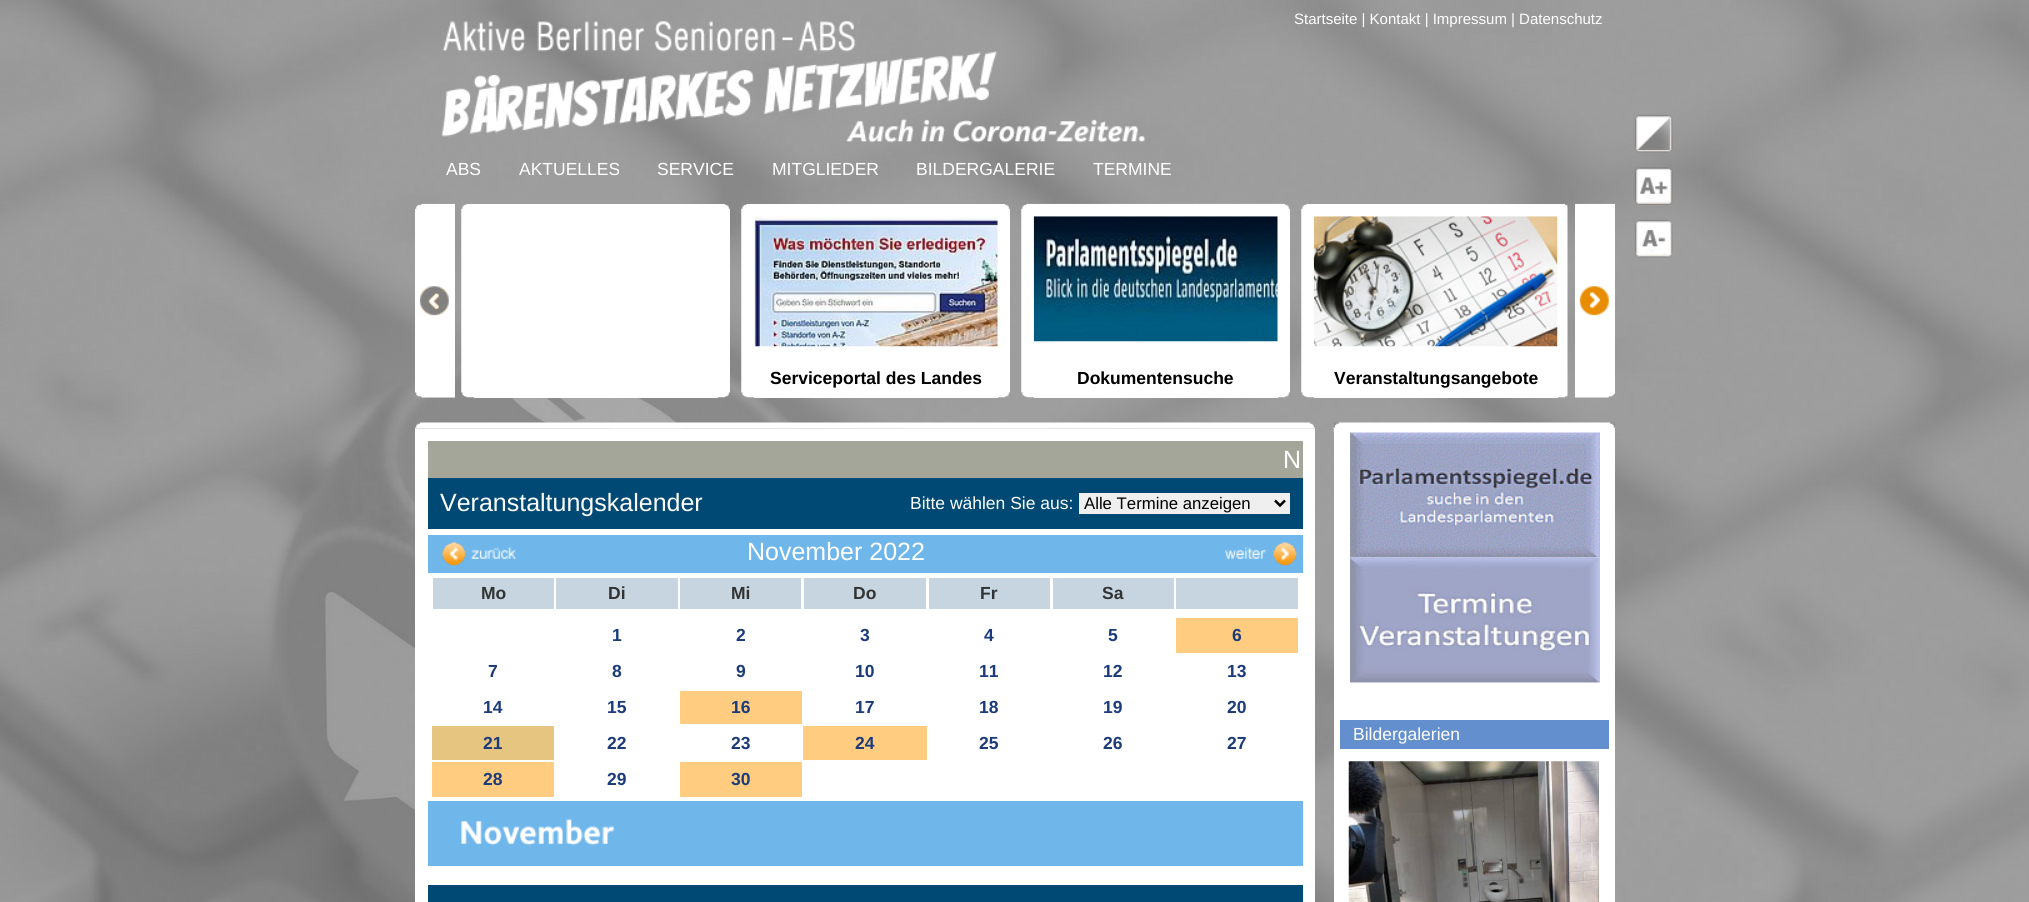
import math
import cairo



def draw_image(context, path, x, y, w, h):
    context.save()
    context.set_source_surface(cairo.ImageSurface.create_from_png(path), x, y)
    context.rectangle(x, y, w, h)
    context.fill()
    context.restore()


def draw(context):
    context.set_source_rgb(1, 1, 1)
    context.paint()
    draw_image(context, "images/1.png", 0, 0, 2029, 902)
    draw_image(context, "images/2.png", 441, 21, 705, 122)
    draw_image(context, "images/3.png", 1634, 114, 39, 39)
    draw_image(context, "images/4.png", 1634, 167, 39, 38)
    draw_image(context, "images/5.png", 1634, 219, 39, 39)
    draw_image(context, "images/6.png", 415, 203, 40, 195)
    draw_image(context, "images/7.png", 461, 204, 269, 194)
    context.set_source_rgb(1, 1, 1)
    context.rectangle(474, 397, 244, 1)
    context.fill()
    draw_image(context, "images/8.png", 741, 204, 269, 194)
    draw_image(context, "images/9.png", 754, 216, 244, 131)
    context.rectangle(754, 397, 244, 1)
    context.fill()
    draw_image(context, "images/10.png", 1021, 203, 269, 195)
    draw_image(context, "images/11.png", 1033, 216, 245, 126)
    context.rectangle(1034, 397, 244, 1)
    context.fill()
    draw_image(context, "images/12.png", 1301, 204, 267, 194)
    draw_image(context, "images/13.png", 1313, 216, 245, 131)
    context.rectangle(1314, 397, 244, 1)
    context.fill()
    draw_image(context, "images/14.png", 1575, 203, 40, 195)
    draw_image(context, "images/15.png", 415, 422, 900, 7)
    context.rectangle(415, 429, 900, 473)
    context.fill()
    context.set_source_rgb(165 / 255, 166 / 255, 154 / 255)
    context.rectangle(428, 441, 875, 37)
    context.fill()
    context.set_source_rgb(0, 73 / 255, 116 / 255)
    context.rectangle(428, 478, 875, 51)
    context.fill()
    context.set_source_rgb(239 / 255, 239 / 255, 239 / 255)
    context.rectangle(1079, 493, 211, 21)
    context.fill()
    context.new_path()
    context.move_to(1275, 500.5)
    context.line_to(1280, 505.5)
    context.line_to(1285, 500.5)
    context.set_source_rgb(0, 0, 0)
    context.set_line_width(2.5)
    context.stroke()
    context.set_source_rgb(111 / 255, 182 / 255, 235 / 255)
    context.rectangle(428, 535, 875, 38)
    context.fill()
    draw_image(context, "images/16.png", 442, 542, 75, 24)
    draw_image(context, "images/17.png", 1224, 542, 73, 24)
    context.set_source_rgb(198 / 255, 213 / 255, 224 / 255)
    context.rectangle(433, 578, 121, 31)
    context.fill()
    context.rectangle(556, 578, 122, 31)
    context.fill()
    context.rectangle(680, 578, 121, 31)
    context.fill()
    context.rectangle(804, 578, 122, 31)
    context.fill()
    context.rectangle(929, 578, 121, 31)
    context.fill()
    context.rectangle(1053, 578, 121, 31)
    context.fill()
    context.rectangle(1176, 578, 122, 31)
    context.fill()
    context.set_source_rgb(1, 204 / 255, 128 / 255)
    context.rectangle(1176, 618, 122, 35)
    context.fill()
    context.rectangle(680, 691, 122, 33)
    context.fill()
    context.set_source_rgb(229 / 255, 197 / 255, 128 / 255)
    context.rectangle(432, 726, 122, 34)
    context.fill()
    context.set_source_rgb(1, 204 / 255, 128 / 255)
    context.rectangle(803, 726, 124, 34)
    context.fill()
    context.rectangle(432, 762, 122, 35)
    context.fill()
    context.rectangle(680, 762, 122, 35)
    context.fill()
    context.set_source_rgb(111 / 255, 182 / 255, 235 / 255)
    context.rectangle(428, 801, 875, 65)
    context.fill()
    draw_image(context, "images/18.png", 461, 818, 153, 28)
    context.set_source_rgb(0, 73 / 255, 116 / 255)
    context.rectangle(428, 885, 875, 17)
    context.fill()
    context.set_source_rgb(1, 1, 1)
    context.rectangle(1334, 432, 281, 470)
    context.fill()
    draw_image(context, "images/19.png", 1333, 422, 282, 11)
    draw_image(context, "images/20.png", 1350, 432, 250, 126)
    draw_image(context, "images/21.png", 1350, 557, 250, 126)
    context.set_source_rgb(99 / 255, 143 / 255, 206 / 255)
    context.rectangle(1340, 720, 269, 29)
    context.fill()
    draw_image(context, "images/22.png", 1348, 761, 251, 141)
    context.select_font_face("Liberation Sans")
    context.set_font_size(15)
    context.set_source_rgb(1, 1, 1)
    context.move_to(1294, 24)
    context.show_text("Startseite | Kontakt | Impressum | Datenschutz")
    context.set_font_size(17.5)
    context.move_to(446, 175)
    context.show_text("ABS")
    context.move_to(519, 175)
    context.show_text("AKTUELLES")
    context.move_to(657, 175)
    context.show_text("SERVICE")
    context.move_to(772, 175)
    context.show_text("MITGLIEDER")
    context.move_to(916, 175)
    context.show_text("BILDERGALERIE")
    context.move_to(1093, 175)
    context.show_text("TERMINE")
    context.select_font_face("Liberation Sans", cairo.FontSlant.NORMAL, cairo.FontWeight.BOLD)
    context.set_source_rgb(0, 0, 0)
    context.move_to(770, 384)
    context.show_text("Serviceportal des Landes")
    context.move_to(1077, 384)
    context.show_text("Dokumentensuche")
    context.move_to(1334, 384)
    context.show_text("Veranstaltungsangebote")
    context.select_font_face("Liberation Sans")
    context.set_font_size(25)
    context.set_source_rgb(1, 1, 1)
    context.move_to(1283, 468)
    context.show_text("N")
    context.move_to(440, 511)
    context.show_text("Veranstaltungskalender")
    context.set_font_size(17.5)
    context.move_to(910, 509)
    context.show_text("Bitte wählen Sie aus:")
    context.set_font_size(16.75)
    context.set_source_rgb(0, 0, 0)
    context.move_to(1084, 509)
    context.show_text("Alle Termine anzeigen")
    context.set_font_size(25)
    context.set_source_rgb(1, 1, 1)
    context.move_to(747, 560)
    context.show_text("November 2022")
    context.select_font_face("Liberation Sans", cairo.FontSlant.NORMAL, cairo.FontWeight.BOLD)
    context.set_font_size(17.5)
    context.set_source_rgb(51 / 255, 51 / 255, 51 / 255)
    context.move_to(481, 599)
    context.show_text("Mo")
    context.move_to(608, 599)
    context.show_text("Di")
    context.move_to(731, 599)
    context.show_text("Mi")
    context.move_to(853, 599)
    context.show_text("Do")
    context.move_to(980, 599)
    context.show_text("Fr")
    context.move_to(1102, 599)
    context.show_text("Sa")
    context.set_source_rgb(27 / 255, 59 / 255, 123 / 255)
    context.move_to(612, 641)
    context.show_text("1")
    context.move_to(736, 641)
    context.show_text("2")
    context.move_to(860, 641)
    context.show_text("3")
    context.move_to(984, 641)
    context.show_text("4")
    context.move_to(1108, 641)
    context.show_text("5")
    context.move_to(1232, 641)
    context.show_text("6")
    context.move_to(488, 677)
    context.show_text("7")
    context.move_to(612, 677)
    context.show_text("8")
    context.move_to(736, 677)
    context.show_text("9")
    context.move_to(855, 677)
    context.show_text("10")
    context.move_to(979, 677)
    context.show_text("11")
    context.move_to(1103, 677)
    context.show_text("12")
    context.move_to(1227, 677)
    context.show_text("13")
    context.move_to(483, 713)
    context.show_text("14")
    context.move_to(607, 713)
    context.show_text("15")
    context.move_to(731, 713)
    context.show_text("16")
    context.move_to(855, 713)
    context.show_text("17")
    context.move_to(979, 713)
    context.show_text("18")
    context.move_to(1103, 713)
    context.show_text("19")
    context.move_to(1227, 713)
    context.show_text("20")
    context.move_to(483, 749)
    context.show_text("21")
    context.move_to(607, 749)
    context.show_text("22")
    context.move_to(731, 749)
    context.show_text("23")
    context.move_to(855, 749)
    context.show_text("24")
    context.move_to(979, 749)
    context.show_text("25")
    context.move_to(1103, 749)
    context.show_text("26")
    context.move_to(1227, 749)
    context.show_text("27")
    context.move_to(483, 785)
    context.show_text("28")
    context.move_to(607, 785)
    context.show_text("29")
    context.move_to(731, 785)
    context.show_text("30")
    context.select_font_face("Liberation Sans")
    context.set_source_rgb(1, 1, 1)
    context.move_to(1353, 740)
    context.show_text("Bildergalerien")


surface = cairo.ImageSurface(cairo.Format.RGB24, 2029, 902)
context = cairo.Context(surface)
options = cairo.FontOptions()
options.set_hint_metrics(cairo.HintMetrics.OFF)
options.set_hint_style(cairo.HintStyle.NONE)
context.set_font_options(options)
context.set_miter_limit(4)
draw(context)
surface.write_to_png("out.png")
